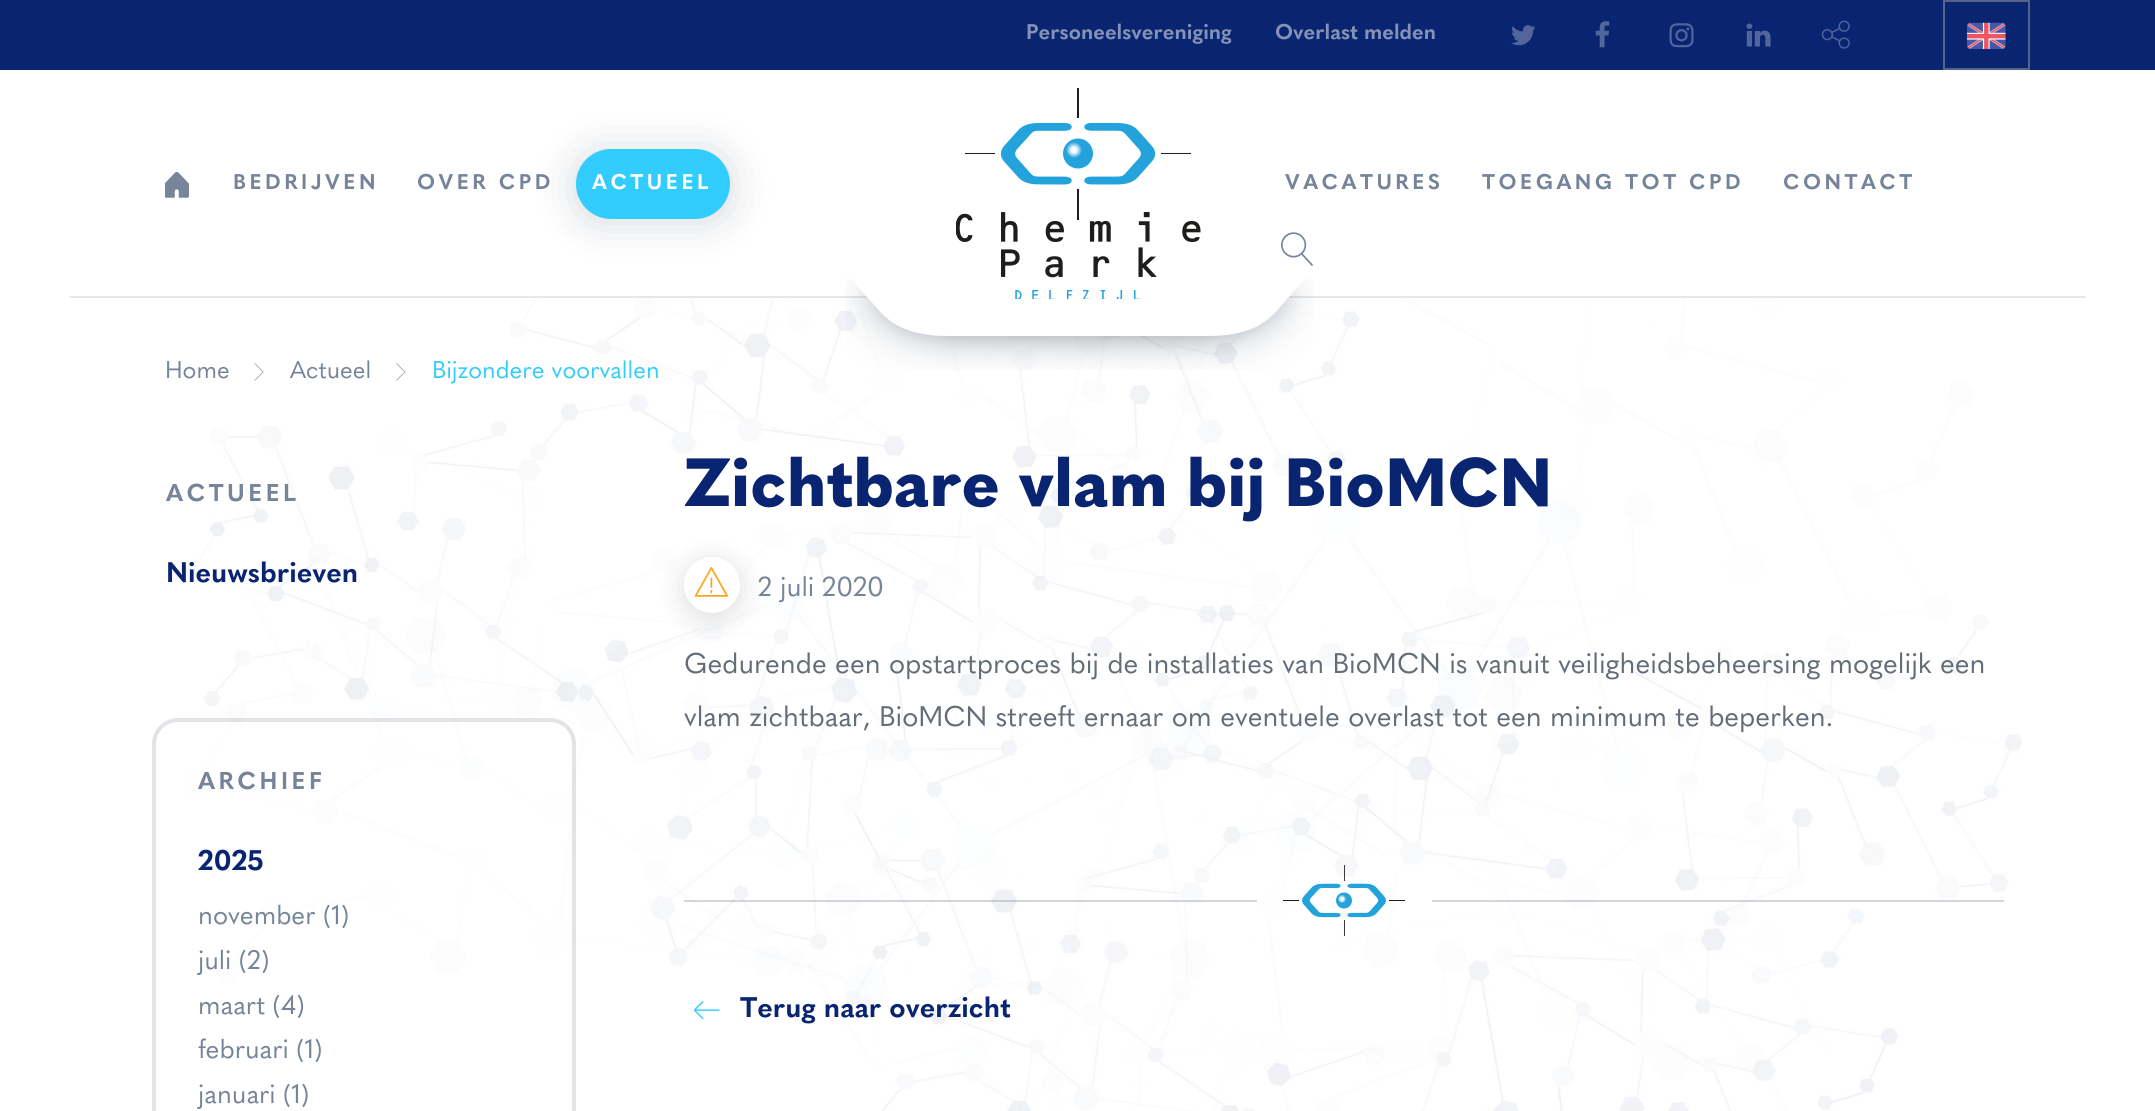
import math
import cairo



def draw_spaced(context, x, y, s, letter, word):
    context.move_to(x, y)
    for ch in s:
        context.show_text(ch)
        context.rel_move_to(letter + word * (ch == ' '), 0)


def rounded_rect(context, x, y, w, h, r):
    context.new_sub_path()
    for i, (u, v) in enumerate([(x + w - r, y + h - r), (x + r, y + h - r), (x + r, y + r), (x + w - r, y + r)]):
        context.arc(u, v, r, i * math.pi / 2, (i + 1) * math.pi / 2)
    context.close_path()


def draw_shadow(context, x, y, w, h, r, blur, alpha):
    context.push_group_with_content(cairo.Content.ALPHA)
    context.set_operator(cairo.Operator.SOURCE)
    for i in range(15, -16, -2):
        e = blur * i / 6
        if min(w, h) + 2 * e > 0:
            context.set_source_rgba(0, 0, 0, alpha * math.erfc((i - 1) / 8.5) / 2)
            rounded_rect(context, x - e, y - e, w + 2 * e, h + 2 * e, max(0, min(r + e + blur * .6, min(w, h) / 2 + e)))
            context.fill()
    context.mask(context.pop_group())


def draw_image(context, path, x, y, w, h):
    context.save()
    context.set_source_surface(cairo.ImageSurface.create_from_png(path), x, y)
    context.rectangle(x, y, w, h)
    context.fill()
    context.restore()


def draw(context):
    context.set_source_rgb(1, 1, 1)
    context.paint()
    context.set_source_rgb(9 / 255, 37 / 255, 113 / 255)
    context.rectangle(0, 0, 2155, 70)
    context.fill()
    draw_image(context, "images/1.png", 1511, 25, 25, 21)
    draw_image(context, "images/2.png", 1595, 21, 15, 27)
    draw_image(context, "images/3.png", 1669, 23, 25, 25)
    draw_image(context, "images/4.png", 1746, 23, 25, 24)
    draw_image(context, "images/5.png", 1821, 20, 29, 29)
    draw_image(context, "images/6.png", 1966, 22, 40, 28)
    context.rectangle(1944, 1, 85, 68)
    context.set_source_rgb(85 / 255, 99 / 255, 139 / 255)
    context.stroke()
    context.set_source_rgb(230 / 255, 231 / 255, 235 / 255)
    context.rectangle(70, 296, 2016, 2)
    context.fill()
    draw_image(context, "images/11.png", 183, 298, 1839, 813)
    draw_image(context, "images/10.png", 845, 277, 468, 93)
    draw_image(context, "images/7.png", 956, 88, 245, 211)
    draw_image(context, "images/8.png", 165, 172, 24, 26)
    context.set_source_rgb(0, 14 / 255, 54 / 255)
    draw_shadow(context, 576, 152, 154, 70, 35, 22, 0.16)
    context.set_source_rgb(51 / 255, 204 / 255, 1)
    rounded_rect(context, 576, 149, 154, 70, 35)
    context.fill()
    draw_image(context, "images/9.png", 1281, 232, 32, 34)
    draw_image(context, "images/12.png", 254, 363, 10, 18)
    draw_image(context, "images/13.png", 396, 363, 10, 18)
    rounded_rect(context, 154, 720, 420, 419, 24)
    context.set_source_rgba(0, 14 / 255, 54 / 255, 0.11)
    context.set_line_width(4)
    context.stroke()
    context.set_source_rgb(0, 0, 0)
    draw_shadow(context, 684, 562, 56, 56, 28, 14, 0.13)
    context.set_source_rgb(1, 1, 1)
    context.arc(712, 585, 28, 0, 2 * math.pi)
    context.fill()
    draw_image(context, "images/14.png", 694, 567, 34, 30)
    context.set_source_rgba(0, 14 / 255, 54 / 255, 0.17)
    context.rectangle(684, 900, 573, 2)
    context.fill()
    draw_image(context, "images/15.png", 1283, 865, 122, 71)
    context.rectangle(1432, 900, 572, 2)
    context.fill()
    draw_image(context, "images/16.png", 693, 1001, 27, 19)
    context.select_font_face("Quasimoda", cairo.FontSlant.NORMAL, cairo.FontWeight.BOLD)
    context.set_font_size(21)
    context.set_source_rgb(132 / 255, 146 / 255, 184 / 255)
    context.move_to(1026, 39)
    context.show_text("Personeelsvereniging")
    context.move_to(1275, 39)
    context.show_text("Overlast melden")
    context.set_source_rgb(118 / 255, 132 / 255, 153 / 255)
    draw_spaced(context, 233, 189, "BEDRIJVEN", 3.5, 0)
    draw_spaced(context, 417, 189, "OVER CPD", 3.5, 0)
    context.set_source_rgb(1, 1, 1)
    draw_spaced(context, 592, 189, "ACTUEEL", 3.5, 0)
    context.set_source_rgb(118 / 255, 132 / 255, 153 / 255)
    draw_spaced(context, 1285, 189, "VACATURES", 3.5, 0)
    draw_spaced(context, 1482, 189, "TOEGANG TOT CPD", 3.5, 0)
    draw_spaced(context, 1783, 189, "CONTACT", 3.5, 0)
    context.select_font_face("Quasimoda")
    context.set_font_size(24)
    context.move_to(165, 378)
    context.show_text("Home")
    context.move_to(290, 378)
    context.show_text("Actueel")
    context.set_source_rgb(51 / 255, 204 / 255, 1)
    context.move_to(432, 378)
    context.show_text("Bijzondere voorvallen")
    context.select_font_face("Quasimoda", cairo.FontSlant.NORMAL, cairo.FontWeight.BOLD)
    context.set_source_rgb(118 / 255, 132 / 255, 153 / 255)
    draw_spaced(context, 166, 501, "ACTUEEL", 3.5, 0)
    context.set_font_size(28)
    context.set_source_rgb(9 / 255, 36 / 255, 112 / 255)
    context.move_to(166, 582)
    context.show_text("Nieuwsbrieven")
    context.set_font_size(24)
    context.set_source_rgb(118 / 255, 132 / 255, 153 / 255)
    draw_spaced(context, 198, 789, "ARCHIEF", 3.5, 0)
    context.set_font_size(28)
    context.set_source_rgb(9 / 255, 36 / 255, 112 / 255)
    context.move_to(198, 870)
    context.show_text("2025")
    context.select_font_face("Quasimoda")
    context.set_font_size(26.25)
    context.set_source_rgb(118 / 255, 132 / 255, 153 / 255)
    context.move_to(198, 924)
    context.show_text("november (1)")
    context.move_to(198, 969)
    context.show_text("juli (2)")
    context.move_to(198, 1014)
    context.show_text("maart (4)")
    context.move_to(198, 1058)
    context.show_text("februari (1)")
    context.move_to(198, 1103)
    context.show_text("januari (1)")
    context.select_font_face("Quasimoda ExtraBold")
    context.set_font_size(67.25)
    context.set_source_rgb(9 / 255, 36 / 255, 112 / 255)
    context.move_to(684, 506)
    context.show_text("Zichtbare vlam bij BioMCN")
    context.select_font_face("Quasimoda")
    context.set_font_size(27)
    context.set_source_rgb(118 / 255, 132 / 255, 153 / 255)
    context.move_to(758, 596)
    context.show_text("2 juli 2020")
    context.set_font_size(28)
    context.set_source_rgb(100 / 255, 108 / 255, 119 / 255)
    context.move_to(684, 673)
    context.show_text("Gedurende een opstartproces bij de installaties van BioMCN is vanuit veiligheidsbeheersing mogelijk een")
    context.move_to(684, 726)
    context.show_text("vlam zichtbaar, BioMCN streeft ernaar om eventuele overlast tot een minimum te beperken.")
    context.select_font_face("Quasimoda", cairo.FontSlant.NORMAL, cairo.FontWeight.BOLD)
    context.set_source_rgb(9 / 255, 36 / 255, 112 / 255)
    context.move_to(740, 1017)
    context.show_text("Terug naar overzicht")


surface = cairo.ImageSurface(cairo.Format.RGB24, 2155, 1111)
context = cairo.Context(surface)
options = cairo.FontOptions()
options.set_hint_metrics(cairo.HintMetrics.OFF)
options.set_hint_style(cairo.HintStyle.NONE)
context.set_font_options(options)
context.set_miter_limit(4)
draw(context)
surface.write_to_png("out.png")
